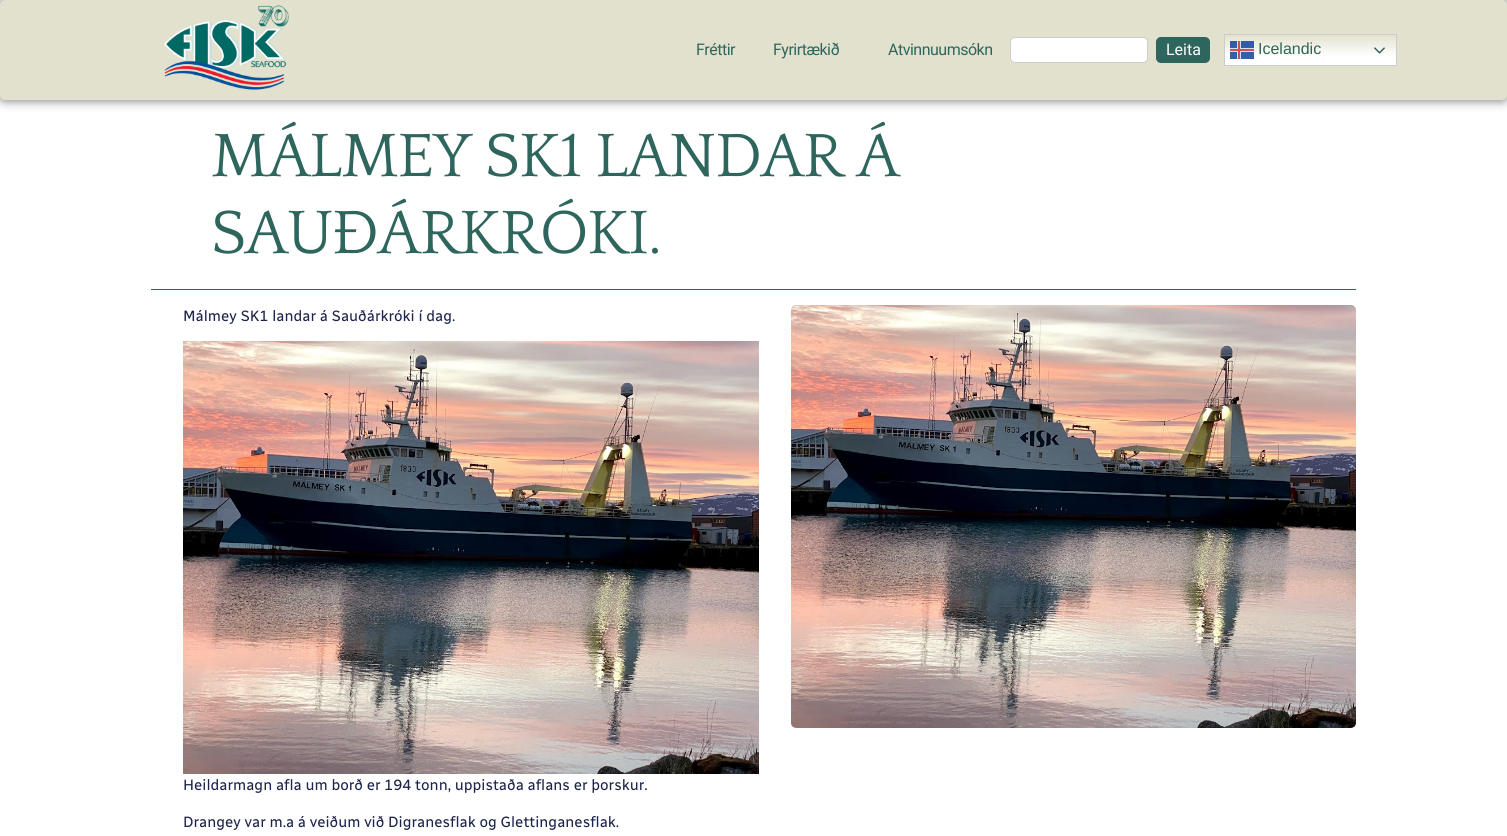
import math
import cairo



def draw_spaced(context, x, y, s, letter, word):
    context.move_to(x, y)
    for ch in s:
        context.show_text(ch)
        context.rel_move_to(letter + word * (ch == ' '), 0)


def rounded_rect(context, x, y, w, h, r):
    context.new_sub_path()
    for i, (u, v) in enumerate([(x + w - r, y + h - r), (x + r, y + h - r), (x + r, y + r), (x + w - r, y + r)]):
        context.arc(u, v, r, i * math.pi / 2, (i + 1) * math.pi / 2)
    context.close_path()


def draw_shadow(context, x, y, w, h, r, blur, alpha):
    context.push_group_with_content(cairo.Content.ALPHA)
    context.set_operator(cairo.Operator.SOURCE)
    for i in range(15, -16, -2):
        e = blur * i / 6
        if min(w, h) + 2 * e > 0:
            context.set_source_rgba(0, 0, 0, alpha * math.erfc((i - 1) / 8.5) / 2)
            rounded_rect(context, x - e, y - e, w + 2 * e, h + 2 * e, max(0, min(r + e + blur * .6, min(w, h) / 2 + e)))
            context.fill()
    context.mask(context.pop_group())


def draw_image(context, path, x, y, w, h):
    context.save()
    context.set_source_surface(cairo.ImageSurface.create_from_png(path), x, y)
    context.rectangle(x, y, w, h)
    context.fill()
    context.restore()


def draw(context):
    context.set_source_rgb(1, 1, 1)
    context.paint()
    context.set_source_rgb(0, 0, 0)
    draw_shadow(context, -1, -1, 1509, 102, 6, 5, 0.5)
    context.set_source_rgb(226 / 255, 225 / 255, 206 / 255)
    rounded_rect(context, 0, 0, 1507, 100, 5)
    context.fill()
    draw_image(context, "images/1.png", 164, 5, 125, 85)
    context.set_source_rgb(1, 1, 1)
    rounded_rect(context, 1010.5, 37.5, 137, 25, 4.5)
    context.fill_preserve()
    context.set_source_rgb(205 / 255, 205 / 255, 205 / 255)
    context.set_line_width(1)
    context.stroke()
    context.set_source_rgb(46 / 255, 102 / 255, 94 / 255)
    rounded_rect(context, 1156, 37, 54, 26, 5)
    context.fill()
    gradient = cairo.LinearGradient(1311, 34, 1311, 66)
    gradient.add_color_stop_rgba(0, 226 / 255, 225 / 255, 206 / 255, 1)
    gradient.add_color_stop_rgba(0.7, 1, 1, 1, 1)
    context.set_source(gradient)
    context.rectangle(1225, 35, 171, 30)
    context.fill()
    context.rectangle(1224.5, 34.5, 172, 31)
    context.set_source_rgb(204 / 255, 204 / 255, 204 / 255)
    context.stroke()
    draw_image(context, "images/2.png", 1230, 41, 24, 18)
    draw_image(context, "images/3.png", 1374, 47, 11, 7)
    context.set_source_rgb(46 / 255, 102 / 255, 94 / 255)
    context.rectangle(151, 289, 1205, 1)
    context.fill()
    draw_image(context, "images/4.png", 183, 341, 576, 433)
    draw_image(context, "images/5.png", 791, 305, 565, 423)
    context.select_font_face("Roboto")
    context.set_font_size(16)
    draw_spaced(context, 696, 55, "Fréttir", -0.5, 0)
    draw_spaced(context, 773, 55, "Fyrirtækið", -0.5, 0)
    draw_spaced(context, 888, 55, "Atvinnuumsókn", -0.5, 0)
    context.set_source_rgb(1, 1, 1)
    context.move_to(1166, 55)
    context.show_text("Leita")
    context.select_font_face("Liberation Sans")
    context.set_source_rgb(46 / 255, 102 / 255, 82 / 255)
    context.move_to(1258, 54)
    context.show_text("Icelandic")
    context.select_font_face("Quattrocento")
    context.set_font_size(64)
    context.set_source_rgb(46 / 255, 102 / 255, 94 / 255)
    draw_spaced(context, 211, 176, "MÁLMEY SK1 LANDAR Á", -1.25, 0)
    draw_spaced(context, 211, 253, "SAUÐÁRKRÓKI.", -1.25, 0)
    context.select_font_face("Radio Canada")
    context.set_font_size(15)
    context.set_source_rgb(28 / 255, 36 / 255, 75 / 255)
    context.move_to(183, 321)
    context.show_text("Málmey SK1 landar á Sauðárkróki í dag.")
    context.move_to(183, 790)
    context.show_text("Heildarmagn afla um borð er 194 tonn, uppistaða aflans er þorskur.")
    context.move_to(183, 827)
    context.show_text("Drangey var m.a á veiðum við Digranesflak og Glettinganesflak.")


surface = cairo.ImageSurface(cairo.Format.RGB24, 1507, 836)
context = cairo.Context(surface)
options = cairo.FontOptions()
options.set_hint_metrics(cairo.HintMetrics.OFF)
options.set_hint_style(cairo.HintStyle.NONE)
context.set_font_options(options)
context.set_miter_limit(4)
draw(context)
surface.write_to_png("out.png")
